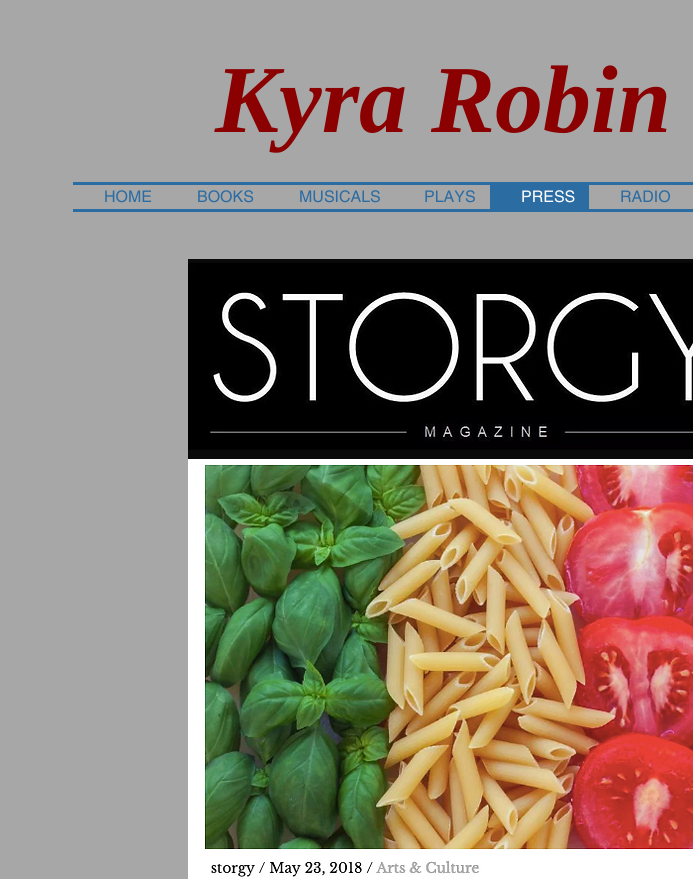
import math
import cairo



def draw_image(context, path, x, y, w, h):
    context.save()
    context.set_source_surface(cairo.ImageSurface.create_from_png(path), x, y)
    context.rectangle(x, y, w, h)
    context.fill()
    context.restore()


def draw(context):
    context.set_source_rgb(167 / 255, 167 / 255, 167 / 255)
    context.paint()
    context.set_source_rgb(43 / 255, 108 / 255, 163 / 255)
    context.rectangle(73, 182, 620, 3)
    context.fill()
    context.rectangle(73, 209, 620, 3)
    context.fill()
    context.rectangle(490, 185, 99, 24)
    context.fill()
    draw_image(context, "images/1.png", 188, 259, 505, 200)
    draw_image(context, "images/2.png", 188, 459, 505, 396)
    draw_image(context, "images/3.png", 188, 855, 505, 24)
    context.select_font_face("Liberation Serif", cairo.FontSlant.ITALIC, cairo.FontWeight.BOLD)
    context.set_font_size(96)
    context.set_source_rgb(139 / 255, 0, 0)
    context.move_to(215, 132)
    context.show_text("Kyra Robin")
    context.select_font_face("helvetica")
    context.set_font_size(16)
    context.set_source_rgb(43 / 255, 108 / 255, 163 / 255)
    context.move_to(104, 202)
    context.show_text("HOME")
    context.move_to(197, 202)
    context.show_text("BOOKS")
    context.move_to(299, 202)
    context.show_text("MUSICALS")
    context.move_to(424, 202)
    context.show_text("PLAYS")
    context.set_source_rgb(1, 1, 1)
    context.move_to(521, 202)
    context.show_text("PRESS")
    context.set_source_rgb(43 / 255, 108 / 255, 163 / 255)
    context.move_to(620, 202)
    context.show_text("RADIO")


surface = cairo.ImageSurface(cairo.Format.RGB24, 693, 879)
context = cairo.Context(surface)
options = cairo.FontOptions()
options.set_hint_metrics(cairo.HintMetrics.OFF)
options.set_hint_style(cairo.HintStyle.NONE)
context.set_font_options(options)
context.set_miter_limit(4)
draw(context)
surface.write_to_png("out.png")
